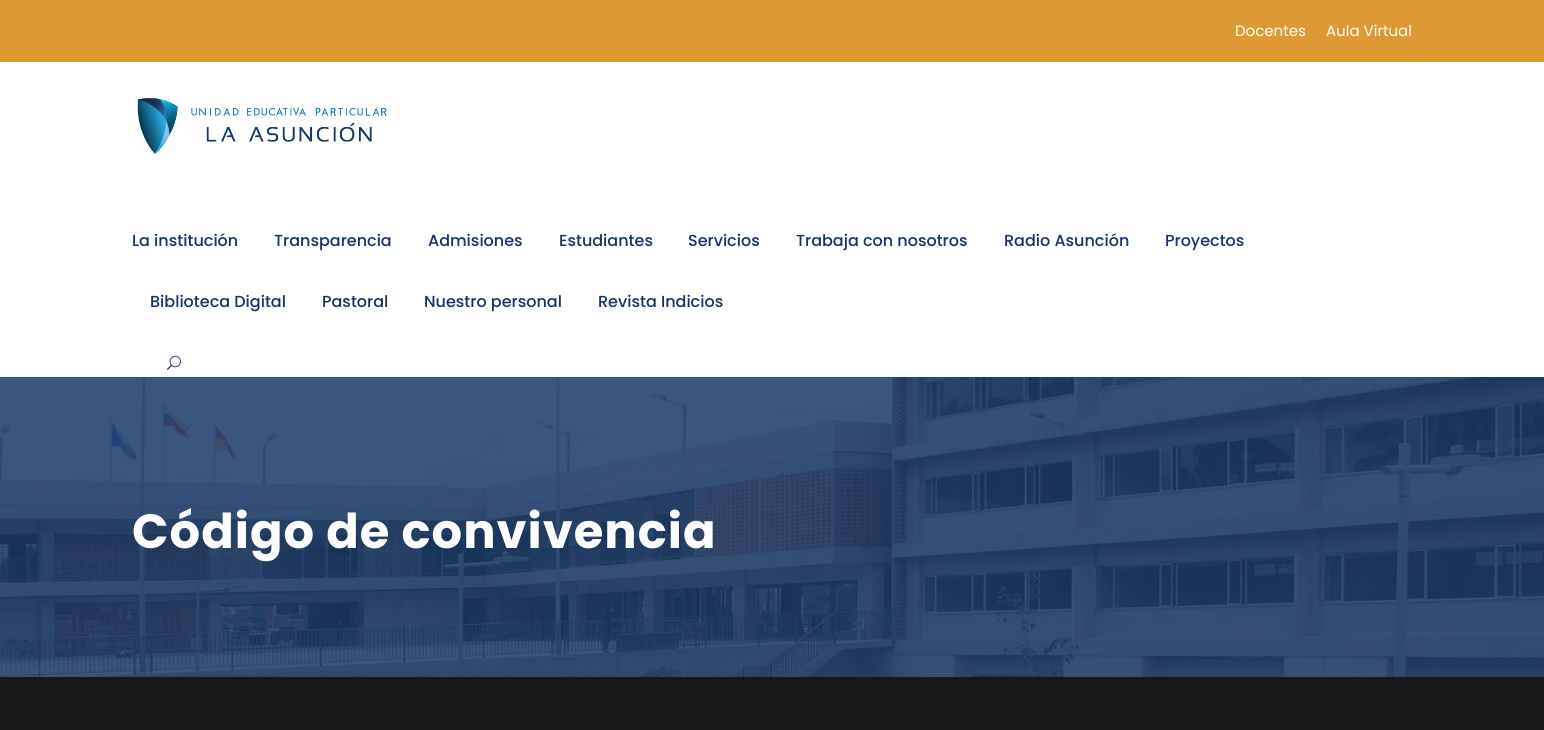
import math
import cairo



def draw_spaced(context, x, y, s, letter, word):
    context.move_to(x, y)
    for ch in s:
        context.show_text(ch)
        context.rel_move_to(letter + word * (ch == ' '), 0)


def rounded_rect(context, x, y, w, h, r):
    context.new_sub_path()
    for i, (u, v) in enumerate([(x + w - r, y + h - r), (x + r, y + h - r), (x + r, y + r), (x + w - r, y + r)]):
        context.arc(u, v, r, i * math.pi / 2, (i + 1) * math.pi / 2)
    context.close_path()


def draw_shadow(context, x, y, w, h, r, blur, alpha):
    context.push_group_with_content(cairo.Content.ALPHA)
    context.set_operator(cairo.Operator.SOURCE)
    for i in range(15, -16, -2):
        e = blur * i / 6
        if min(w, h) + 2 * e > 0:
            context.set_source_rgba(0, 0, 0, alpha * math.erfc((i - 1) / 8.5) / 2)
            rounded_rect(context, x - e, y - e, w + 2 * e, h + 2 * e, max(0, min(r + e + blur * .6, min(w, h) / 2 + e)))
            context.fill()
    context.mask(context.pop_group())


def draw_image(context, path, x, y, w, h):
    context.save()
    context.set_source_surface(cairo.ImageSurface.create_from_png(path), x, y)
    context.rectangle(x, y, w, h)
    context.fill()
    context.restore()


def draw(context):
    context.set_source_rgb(1, 1, 1)
    context.paint()
    context.set_source_rgb(221 / 255, 153 / 255, 51 / 255)
    context.rectangle(0, 0, 1544, 62)
    context.fill()
    context.save()
    context.rectangle(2, 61, 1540, 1)
    context.clip()
    context.set_source_rgb(0, 0, 0)
    draw_shadow(context, 0, 63, 1544, 315, 0, 2, 0.1)
    context.restore()
    draw_image(context, "images/1.png", 137, 98, 250, 56)
    draw_image(context, "images/2.png", 167, 355, 14, 15)
    draw_image(context, "images/3.png", 0, 377, 1544, 300)
    context.set_source_rgb(24 / 255, 24 / 255, 24 / 255)
    context.rectangle(0, 677, 1544, 53)
    context.fill()
    context.select_font_face("Poppins")
    context.set_font_size(15)
    context.set_source_rgb(1, 1, 1)
    context.move_to(1235, 36)
    context.show_text("Docentes")
    context.move_to(1326, 36)
    context.show_text("Aula Virtual")
    context.select_font_face("Poppins Medium")
    context.set_font_size(16)
    context.set_source_rgb(22 / 255, 50 / 255, 105 / 255)
    context.move_to(132, 246)
    context.show_text("La institución")
    context.move_to(274, 246)
    context.show_text("Transparencia")
    context.move_to(428, 246)
    context.show_text("Admisiones")
    context.move_to(559, 246)
    context.show_text("Estudiantes")
    context.move_to(688, 246)
    context.show_text("Servicios")
    context.move_to(796, 246)
    context.show_text("Trabaja con nosotros")
    context.move_to(1004, 246)
    context.show_text("Radio Asunción")
    context.move_to(1165, 246)
    context.show_text("Proyectos")
    context.move_to(150, 307)
    context.show_text("Biblioteca Digital")
    context.move_to(322, 307)
    context.show_text("Pastoral")
    context.move_to(424, 307)
    context.show_text("Nuestro personal")
    context.move_to(598, 307)
    context.show_text("Revista Indicios")
    context.select_font_face("Poppins", cairo.FontSlant.NORMAL, cairo.FontWeight.BOLD)
    context.set_font_size(48)
    context.set_source_rgb(1, 1, 1)
    draw_spaced(context, 132, 548, "Código de convivencia", 1, 0)


surface = cairo.ImageSurface(cairo.Format.RGB24, 1544, 730)
context = cairo.Context(surface)
options = cairo.FontOptions()
options.set_hint_metrics(cairo.HintMetrics.OFF)
options.set_hint_style(cairo.HintStyle.NONE)
context.set_font_options(options)
context.set_miter_limit(4)
draw(context)
surface.write_to_png("out.png")
